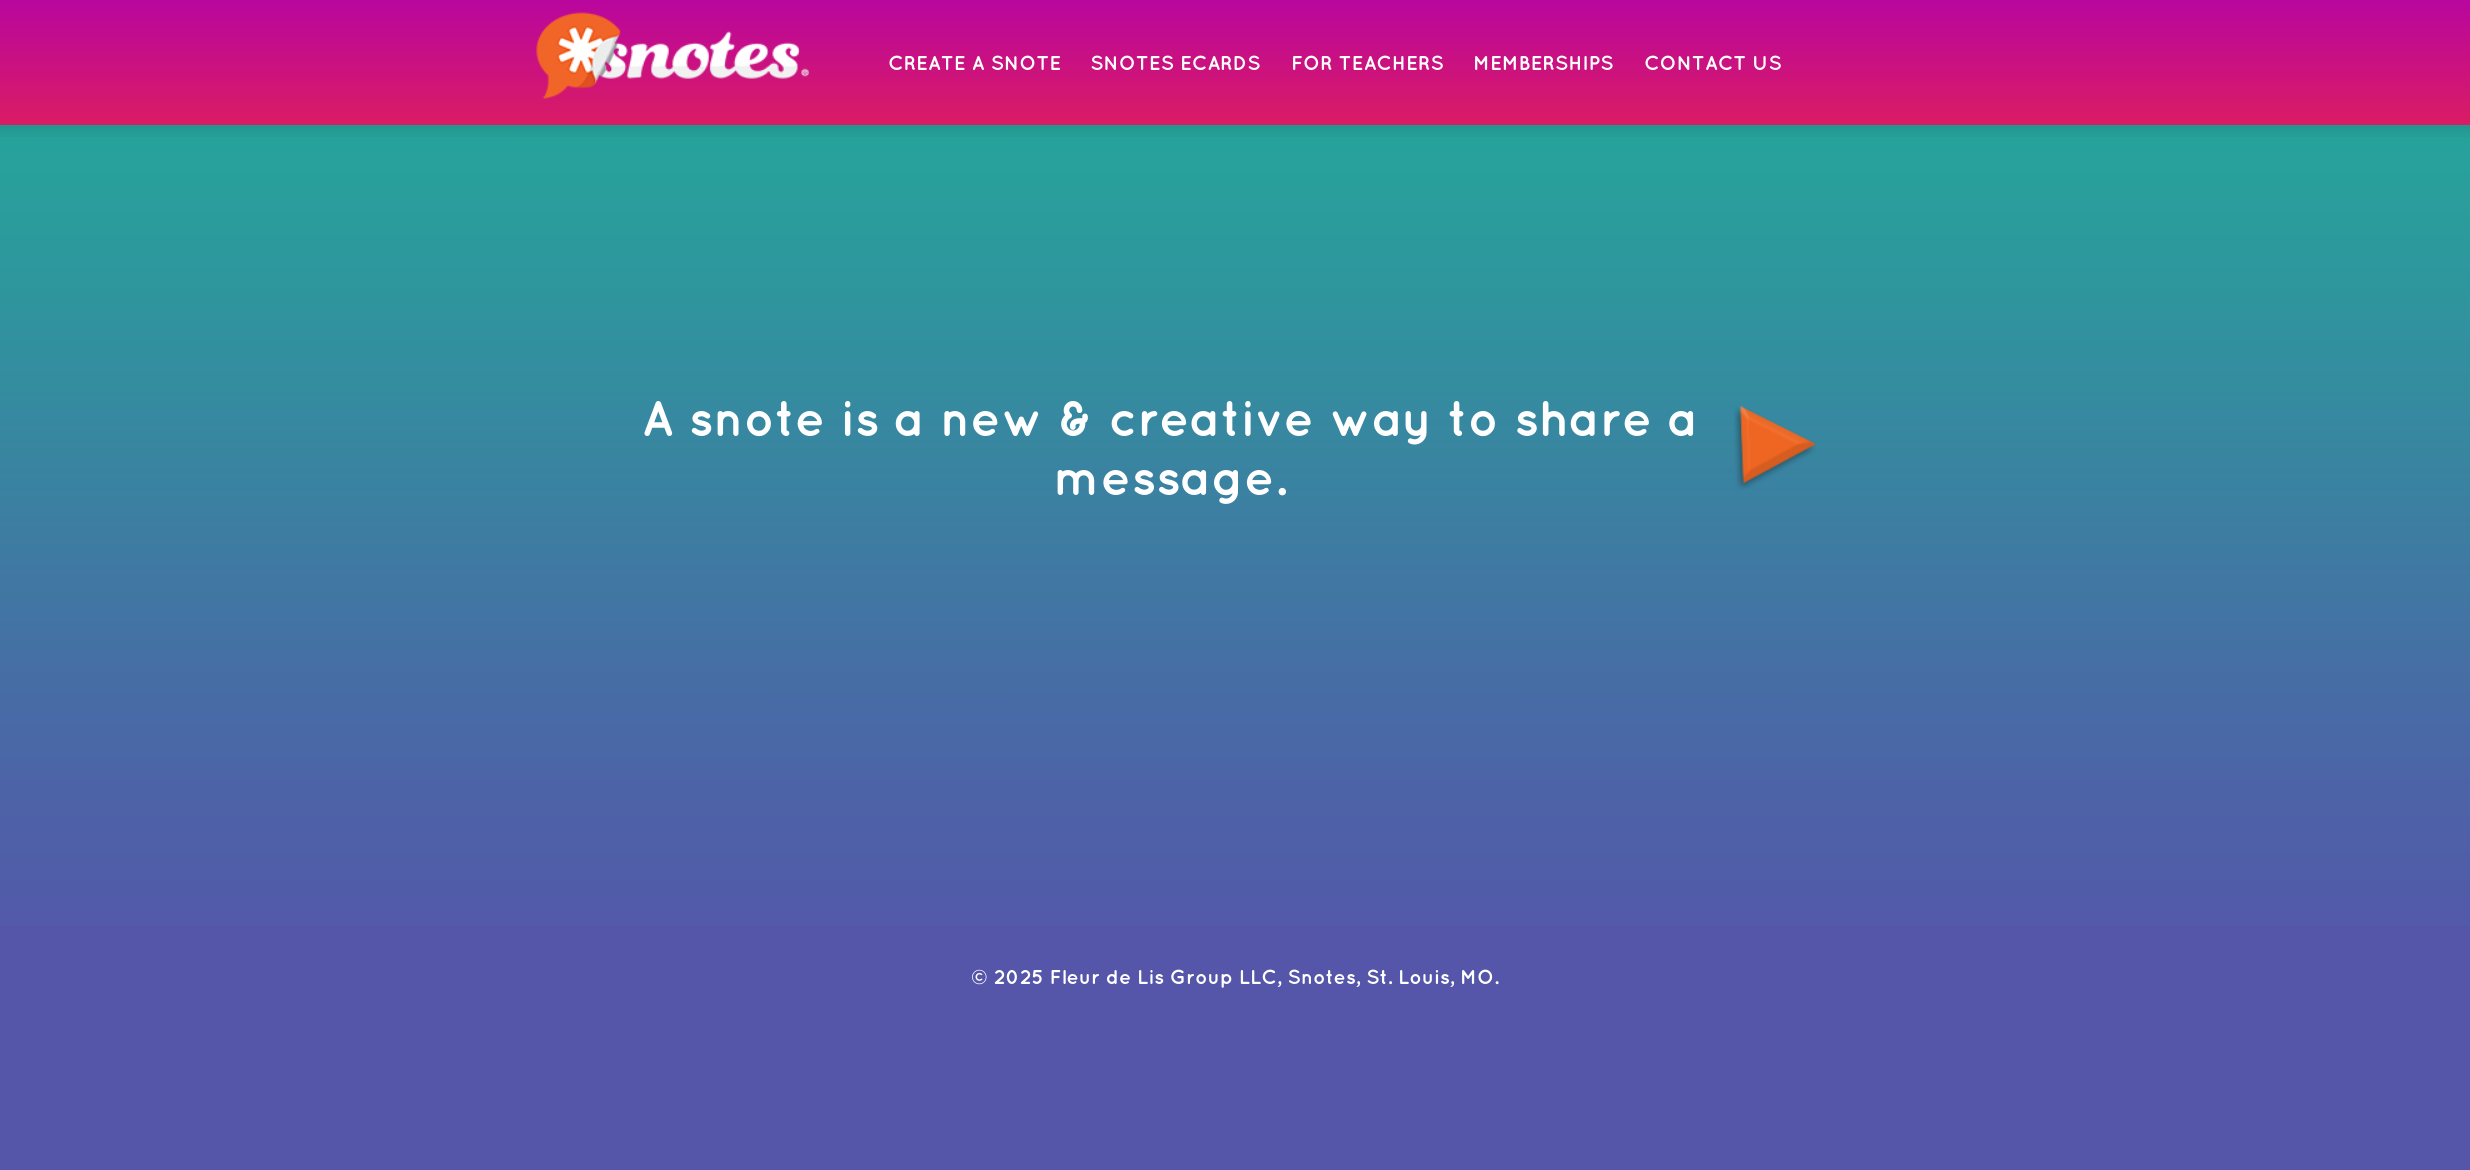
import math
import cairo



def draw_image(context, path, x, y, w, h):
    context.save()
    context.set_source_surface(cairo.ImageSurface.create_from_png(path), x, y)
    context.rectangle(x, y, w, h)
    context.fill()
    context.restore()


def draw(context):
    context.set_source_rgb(85 / 255, 85 / 255, 170 / 255)
    context.paint()
    draw_image(context, "images/1.png", 0, 125, 2470, 800)
    draw_image(context, "images/2.png", 0, 125, 2470, 12)
    gradient = cairo.LinearGradient(1235, 0, 1235, 125)
    gradient.add_color_stop_rgba(0, 185 / 255, 6 / 255, 158 / 255, 1)
    gradient.add_color_stop_rgba(1, 218 / 255, 28 / 255, 100 / 255, 1)
    context.set_source(gradient)
    context.rectangle(0, 0, 2470, 125)
    context.fill()
    draw_image(context, "images/3.png", 536, 12, 273, 87)
    draw_image(context, "images/4.png", 1734, 405, 83, 84)
    context.select_font_face("Quicksand", cairo.FontSlant.NORMAL, cairo.FontWeight.BOLD)
    context.set_font_size(20)
    context.set_source_rgb(1, 1, 1)
    context.move_to(888, 70)
    context.show_text("CREATE A SNOTE")
    context.move_to(1090, 70)
    context.show_text("SNOTES ECARDS")
    context.move_to(1291, 70)
    context.show_text("FOR TEACHERS")
    context.move_to(1473, 70)
    context.show_text("MEMBERSHIPS")
    context.move_to(1644, 70)
    context.show_text("CONTACT US")
    context.set_font_size(50)
    context.move_to(641, 436)
    context.show_text("A snote is a new & creative way to share a")
    context.move_to(1053, 495)
    context.show_text("message.")
    context.set_font_size(20)
    context.move_to(971, 984)
    context.show_text("© 2025 Fleur de Lis Group LLC, Snotes, St. Louis, MO.")


surface = cairo.ImageSurface(cairo.Format.RGB24, 2470, 1170)
context = cairo.Context(surface)
options = cairo.FontOptions()
options.set_hint_metrics(cairo.HintMetrics.OFF)
options.set_hint_style(cairo.HintStyle.NONE)
context.set_font_options(options)
context.set_miter_limit(4)
draw(context)
surface.write_to_png("out.png")
